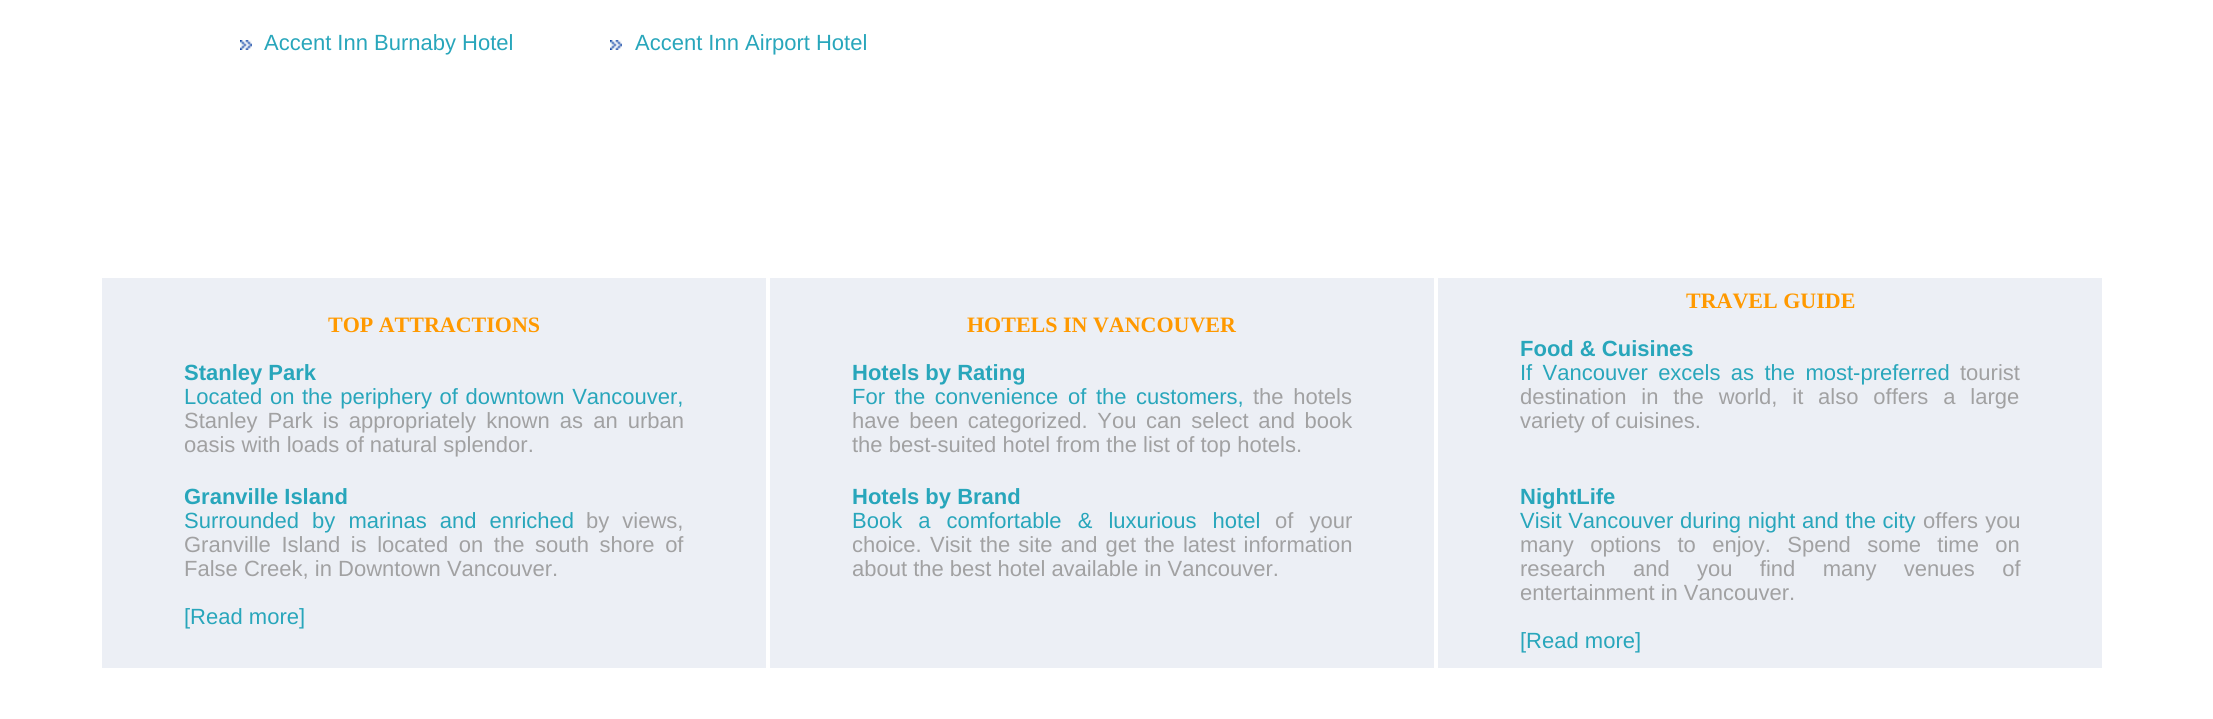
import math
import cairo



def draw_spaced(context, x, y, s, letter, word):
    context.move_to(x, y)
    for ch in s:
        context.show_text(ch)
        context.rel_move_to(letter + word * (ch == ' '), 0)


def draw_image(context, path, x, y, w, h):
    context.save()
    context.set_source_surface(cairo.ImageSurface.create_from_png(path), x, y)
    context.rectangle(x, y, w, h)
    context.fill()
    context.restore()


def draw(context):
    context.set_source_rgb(1, 1, 1)
    context.paint()
    draw_image(context, "images/1.png", 240, 40, 12, 10)
    draw_image(context, "images/1.png", 610, 40, 12, 10)
    context.set_source_rgb(236 / 255, 239 / 255, 245 / 255)
    context.rectangle(102, 278, 664, 390)
    context.fill()
    context.rectangle(770, 278, 664, 390)
    context.fill()
    context.rectangle(1438, 278, 664, 390)
    context.fill()
    context.select_font_face("Liberation Sans")
    context.set_font_size(22)
    context.set_source_rgb(40 / 255, 166 / 255, 187 / 255)
    context.move_to(264, 50)
    context.show_text("Accent Inn Burnaby Hotel")
    context.move_to(635, 50)
    context.show_text("Accent Inn Airport Hotel")
    context.select_font_face("Liberation Serif", cairo.FontSlant.NORMAL, cairo.FontWeight.BOLD)
    context.set_source_rgb(1, 153 / 255, 0)
    context.move_to(328, 332)
    context.show_text("TOP ATTRACTIONS")
    context.select_font_face("Liberation Sans", cairo.FontSlant.NORMAL, cairo.FontWeight.BOLD)
    context.set_source_rgb(40 / 255, 166 / 255, 187 / 255)
    context.move_to(184, 380)
    context.show_text("Stanley Park")
    context.select_font_face("Liberation Sans")
    draw_spaced(context, 184, 404, "Located on the periphery of downtown Vancouver,", 0, 1.5)
    context.set_source_rgb(161 / 255, 161 / 255, 162 / 255)
    draw_spaced(context, 184, 428, "Stanley Park is appropriately known as an urban", 0, 4)
    context.move_to(184, 452)
    context.show_text("oasis with loads of natural splendor.")
    context.select_font_face("Liberation Sans", cairo.FontSlant.NORMAL, cairo.FontWeight.BOLD)
    context.set_source_rgb(40 / 255, 166 / 255, 187 / 255)
    context.move_to(184, 504)
    context.show_text("Granville Island")
    context.select_font_face("Liberation Sans")
    draw_spaced(context, 184, 528, "Surrounded by marinas and enriched", 0, 7)
    context.set_source_rgb(161 / 255, 161 / 255, 162 / 255)
    draw_spaced(context, 586, 528, "by views,", 0, 7)
    draw_spaced(context, 184, 552, "Granville Island is located on the south shore of", 0, 4.5)
    context.move_to(184, 576)
    context.show_text("False Creek, in Downtown Vancouver.")
    context.set_source_rgb(40 / 255, 166 / 255, 187 / 255)
    context.move_to(184, 624)
    context.show_text("[Read more]")
    context.select_font_face("Liberation Serif", cairo.FontSlant.NORMAL, cairo.FontWeight.BOLD)
    context.set_source_rgb(1, 153 / 255, 0)
    context.move_to(967, 332)
    context.show_text("HOTELS IN VANCOUVER")
    context.select_font_face("Liberation Sans", cairo.FontSlant.NORMAL, cairo.FontWeight.BOLD)
    context.set_source_rgb(40 / 255, 166 / 255, 187 / 255)
    context.move_to(852, 380)
    context.show_text("Hotels by Rating")
    context.select_font_face("Liberation Sans")
    draw_spaced(context, 852, 404, "For the convenience of the customers,", 0, 3.5)
    context.set_source_rgb(161 / 255, 161 / 255, 162 / 255)
    draw_spaced(context, 1253, 404, "the hotels", 0, 3.5)
    draw_spaced(context, 852, 428, "have been categorized. You can select and book", 0, 3.5)
    context.move_to(852, 452)
    context.show_text("the best-suited hotel from the list of top hotels.")
    context.select_font_face("Liberation Sans", cairo.FontSlant.NORMAL, cairo.FontWeight.BOLD)
    context.set_source_rgb(40 / 255, 166 / 255, 187 / 255)
    context.move_to(852, 504)
    context.show_text("Hotels by Brand")
    context.select_font_face("Liberation Sans")
    draw_spaced(context, 852, 528, "Book a comfortable & luxurious hotel", 0, 10)
    context.set_source_rgb(161 / 255, 161 / 255, 162 / 255)
    draw_spaced(context, 1275, 528, "of your", 0, 10)
    context.move_to(852, 552)
    context.show_text("choice.")
    draw_spaced(context, 930, 552, "Visit the site and get the latest information", 0, 2)
    context.move_to(852, 576)
    context.show_text("about the best hotel available in Vancouver.")
    context.select_font_face("Liberation Serif", cairo.FontSlant.NORMAL, cairo.FontWeight.BOLD)
    context.set_source_rgb(1, 153 / 255, 0)
    context.move_to(1686, 308)
    context.show_text("TRAVEL GUIDE")
    context.select_font_face("Liberation Sans", cairo.FontSlant.NORMAL, cairo.FontWeight.BOLD)
    context.set_source_rgb(40 / 255, 166 / 255, 187 / 255)
    context.move_to(1520, 356)
    context.show_text("Food & Cuisines")
    context.select_font_face("Liberation Sans")
    draw_spaced(context, 1520, 380, "If Vancouver excels as the most-preferred", 0, 4.25)
    context.set_source_rgb(161 / 255, 161 / 255, 162 / 255)
    context.move_to(1960, 380)
    context.show_text("tourist")
    draw_spaced(context, 1520, 404, "destination in the world, it also offers a large", 0, 8.75)
    context.move_to(1520, 428)
    context.show_text("variety of cuisines.")
    context.select_font_face("Liberation Sans", cairo.FontSlant.NORMAL, cairo.FontWeight.BOLD)
    context.set_source_rgb(40 / 255, 166 / 255, 187 / 255)
    context.move_to(1520, 504)
    context.show_text("NightLife")
    context.select_font_face("Liberation Sans")
    draw_spaced(context, 1520, 528, "Visit Vancouver during night and the city", 0, 0.5)
    context.set_source_rgb(161 / 255, 161 / 255, 162 / 255)
    draw_spaced(context, 1923, 528, "offers you", 0, 1)
    draw_spaced(context, 1520, 552, "many options to enjoy. Spend some time on", 0, 10.25)
    draw_spaced(context, 1520, 576, "research and you find many venues of", 0, 21.25)
    context.move_to(1520, 600)
    context.show_text("entertainment in Vancouver.")
    context.set_source_rgb(40 / 255, 166 / 255, 187 / 255)
    context.move_to(1520, 648)
    context.show_text("[Read more]")


surface = cairo.ImageSurface(cairo.Format.RGB24, 2213, 719)
context = cairo.Context(surface)
options = cairo.FontOptions()
options.set_hint_metrics(cairo.HintMetrics.OFF)
options.set_hint_style(cairo.HintStyle.NONE)
context.set_font_options(options)
context.set_miter_limit(4)
draw(context)
surface.write_to_png("out.png")
